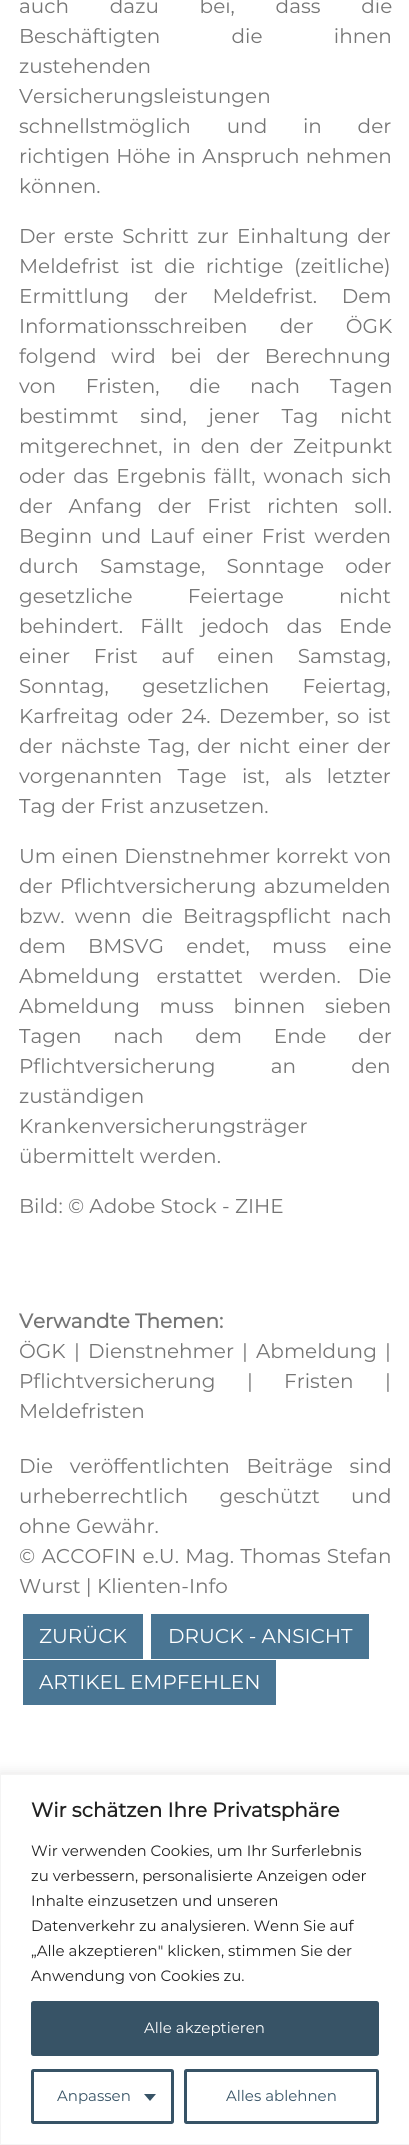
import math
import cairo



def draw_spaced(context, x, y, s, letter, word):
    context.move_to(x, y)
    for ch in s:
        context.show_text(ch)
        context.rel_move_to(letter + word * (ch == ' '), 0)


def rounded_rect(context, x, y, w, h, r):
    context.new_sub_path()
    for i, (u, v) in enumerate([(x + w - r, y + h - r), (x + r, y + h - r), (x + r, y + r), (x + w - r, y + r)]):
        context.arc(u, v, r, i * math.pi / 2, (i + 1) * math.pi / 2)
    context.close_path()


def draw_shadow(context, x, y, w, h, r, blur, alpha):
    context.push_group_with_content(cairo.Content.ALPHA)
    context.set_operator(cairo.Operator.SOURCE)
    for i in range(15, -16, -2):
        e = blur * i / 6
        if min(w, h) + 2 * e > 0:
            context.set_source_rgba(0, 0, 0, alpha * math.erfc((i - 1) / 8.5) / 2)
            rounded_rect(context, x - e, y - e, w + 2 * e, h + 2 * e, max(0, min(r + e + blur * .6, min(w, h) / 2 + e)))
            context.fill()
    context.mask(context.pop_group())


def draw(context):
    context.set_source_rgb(1, 1, 1)
    context.paint()
    context.set_source_rgb(73 / 255, 117 / 255, 147 / 255)
    context.rectangle(23, 1614, 120, 45)
    context.fill()
    context.rectangle(151, 1614, 218, 45)
    context.fill()
    context.rectangle(23, 1660, 253, 45)
    context.fill()
    context.set_source_rgb(172 / 255, 171 / 255, 171 / 255)
    draw_shadow(context, 0, 1773, 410, 371, 0, 6, 0.3)
    context.set_source_rgb(1, 1, 1)
    context.rectangle(0.5, 1774.5, 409, 370)
    context.fill_preserve()
    context.set_source_rgb(244 / 255, 244 / 255, 244 / 255)
    context.set_line_width(1)
    context.stroke()
    context.set_source_rgb(55 / 255, 83 / 255, 102 / 255)
    rounded_rect(context, 32.5, 2002.5, 345, 52, 1)
    context.fill_preserve()
    context.set_line_width(3)
    context.stroke()
    rounded_rect(context, 32.5, 2070.5, 140, 52, 1)
    context.stroke()
    context.new_path()
    context.move_to(144, 2094)
    context.line_to(156, 2094)
    context.line_to(150, 2101)
    context.close_path()
    context.fill()
    rounded_rect(context, 185.5, 2070.5, 192, 52, 1)
    context.stroke()
    context.select_font_face("Montserrat")
    context.set_font_size(20)
    context.set_source_rgb(117 / 255, 117 / 255, 117 / 255)
    draw_spaced(context, 19, 13, "auch dazu bei, dass die", 0, 35.5)
    draw_spaced(context, 19, 43, "Beschäftigten die ihnen", 0, 66)
    context.move_to(19, 73)
    context.show_text("zustehenden")
    context.move_to(19, 103)
    context.show_text("Versicherungsleistungen")
    draw_spaced(context, 19, 133, "schnellstmöglich und in der", 0, 30.5)
    draw_spaced(context, 19, 163, "richtigen Höhe in Anspruch nehmen", 0, 1)
    context.move_to(19, 193)
    context.show_text("können.")
    draw_spaced(context, 19, 243, "Der erste Schritt zur Einhaltung der", 0, 3)
    draw_spaced(context, 19, 273, "Meldefrist ist die richtige (zeitliche)", 0, 5.5)
    draw_spaced(context, 19, 303, "Ermittlung der Meldefrist. Dem", 0, 19.5)
    draw_spaced(context, 19, 333, "Informationsschreiben der ÖGK", 0, 27)
    draw_spaced(context, 19, 363, "folgend wird bei der Berechnung", 0, 9.5)
    draw_spaced(context, 19, 393, "von Fristen, die nach Tagen", 0, 24.5)
    draw_spaced(context, 19, 423, "bestimmt sind, jener Tag nicht", 0, 16.5)
    draw_spaced(context, 19, 453, "mitgerechnet, in den der Zeitpunkt", 0, 4.5)
    draw_spaced(context, 19, 483, "oder das Ergebnis fällt, wonach sich", 0, 2.75)
    draw_spaced(context, 19, 513, "der Anfang der Frist richten soll.", 0, 10.5)
    draw_spaced(context, 19, 543, "Beginn und Lauf einer Frist werden", 0, 3.25)
    draw_spaced(context, 19, 573, "durch Samstage, Sonntage oder", 0, 16)
    draw_spaced(context, 19, 603, "gesetzliche Feiertage nicht", 0, 50)
    draw_spaced(context, 19, 633, "behindert. Fällt jedoch das Ende", 0, 12)
    draw_spaced(context, 19, 663, "einer Frist auf einen Samstag,", 0, 18.5)
    draw_spaced(context, 19, 693, "Sonntag, gesetzlichen Feiertag,", 0, 28)
    draw_spaced(context, 19, 723, "Karfreitag oder 24. Dezember, so ist", 0, 3)
    draw_spaced(context, 19, 753, "der nächste Tag, der nicht einer der", 0, 2.5)
    draw_spaced(context, 19, 783, "vorgenannten Tage ist, als letzter", 0, 10)
    context.move_to(19, 813)
    context.show_text("Tag der Frist anzusetzen.")
    draw_spaced(context, 19, 863, "Um einen Dienstnehmer korrekt von", 0, 0.5)
    draw_spaced(context, 19, 893, "der Pflichtversicherung abzumelden", 0, 2)
    draw_spaced(context, 19, 923, "bzw. wenn die Beitragspflicht nach", 0, 5)
    draw_spaced(context, 19, 953, "dem BMSVG endet, muss eine", 0, 17)
    draw_spaced(context, 19, 983, "Abmeldung erstattet werden. Die", 0, 11.5)
    draw_spaced(context, 19, 1013, "Abmeldung muss binnen sieben", 0, 14.5)
    draw_spaced(context, 19, 1043, "Tagen nach dem Ende der", 0, 26.5)
    draw_spaced(context, 19, 1073, "Pflichtversicherung an den", 0, 50)
    context.move_to(19, 1103)
    context.show_text("zuständigen")
    context.move_to(19, 1133)
    context.show_text("Krankenversicherungsträger")
    context.move_to(19, 1163)
    context.show_text("übermittelt werden.")
    context.move_to(19, 1213)
    context.show_text("Bild: © Adobe Stock - ZIHE")
    context.select_font_face("Montserrat", cairo.FontSlant.NORMAL, cairo.FontWeight.BOLD)
    context.move_to(19, 1328)
    context.show_text("Verwandte Themen:")
    context.select_font_face("Montserrat")
    context.move_to(19, 1358)
    context.show_text("ÖGK")
    context.move_to(74, 1358)
    context.show_text("|")
    context.move_to(88, 1358)
    context.show_text("Dienstnehmer")
    context.move_to(242, 1358)
    context.show_text("|")
    context.move_to(256, 1358)
    context.show_text("Abmeldung")
    context.move_to(385, 1358)
    context.show_text("|")
    context.move_to(19, 1388)
    context.show_text("Pflichtversicherung")
    context.move_to(247, 1388)
    context.show_text("|")
    context.move_to(284, 1388)
    context.show_text("Fristen")
    context.move_to(385, 1388)
    context.show_text("|")
    context.move_to(19, 1418)
    context.show_text("Meldefristen")
    draw_spaced(context, 19, 1473, "Die veröffentlichten Beiträge sind", 0, 11.5)
    draw_spaced(context, 19, 1503, "urheberrechtlich geschützt und", 0, 26)
    context.move_to(19, 1533)
    context.show_text("ohne Gewähr.")
    draw_spaced(context, 19, 1563, "© ACCOFIN e.U. Mag. Thomas Stefan", 0, 1)
    context.move_to(19, 1593)
    context.show_text("Wurst | Klienten-Info")
    context.set_source_rgb(1, 1, 1)
    context.move_to(39, 1643)
    context.show_text("ZURÜCK")
    context.move_to(168, 1643)
    context.show_text("DRUCK - ANSICHT")
    context.move_to(39, 1689)
    context.show_text("ARTIKEL EMPFEHLEN")
    context.select_font_face("Montserrat", cairo.FontSlant.NORMAL, cairo.FontWeight.BOLD)
    context.set_source_rgb(33 / 255, 33 / 255, 33 / 255)
    context.move_to(31, 1817)
    context.show_text("Wir schätzen Ihre Privatsphäre")
    context.select_font_face("Montserrat")
    context.set_font_size(15)
    context.move_to(31, 1856)
    context.show_text("Wir verwenden Cookies, um Ihr Surferlebnis")
    context.move_to(31, 1881)
    context.show_text("zu verbessern, personalisierte Anzeigen oder")
    context.move_to(31, 1906)
    context.show_text("Inhalte einzusetzen und unseren")
    context.move_to(31, 1931)
    context.show_text("Datenverkehr zu analysieren. Wenn Sie auf")
    context.move_to(31, 1956)
    context.show_text("„Alle akzeptieren\" klicken, stimmen Sie der")
    context.move_to(31, 1981)
    context.show_text("Anwendung von Cookies zu.")
    context.set_source_rgb(1, 1, 1)
    context.move_to(144, 2033)
    context.show_text("Alle akzeptieren")
    context.set_source_rgb(55 / 255, 83 / 255, 102 / 255)
    context.move_to(57, 2101)
    context.show_text("Anpassen")
    context.move_to(226, 2101)
    context.show_text("Alles ablehnen")


surface = cairo.ImageSurface(cairo.Format.RGB24, 409, 2145)
context = cairo.Context(surface)
options = cairo.FontOptions()
options.set_hint_metrics(cairo.HintMetrics.OFF)
options.set_hint_style(cairo.HintStyle.NONE)
context.set_font_options(options)
context.set_miter_limit(4)
draw(context)
surface.write_to_png("out.png")
